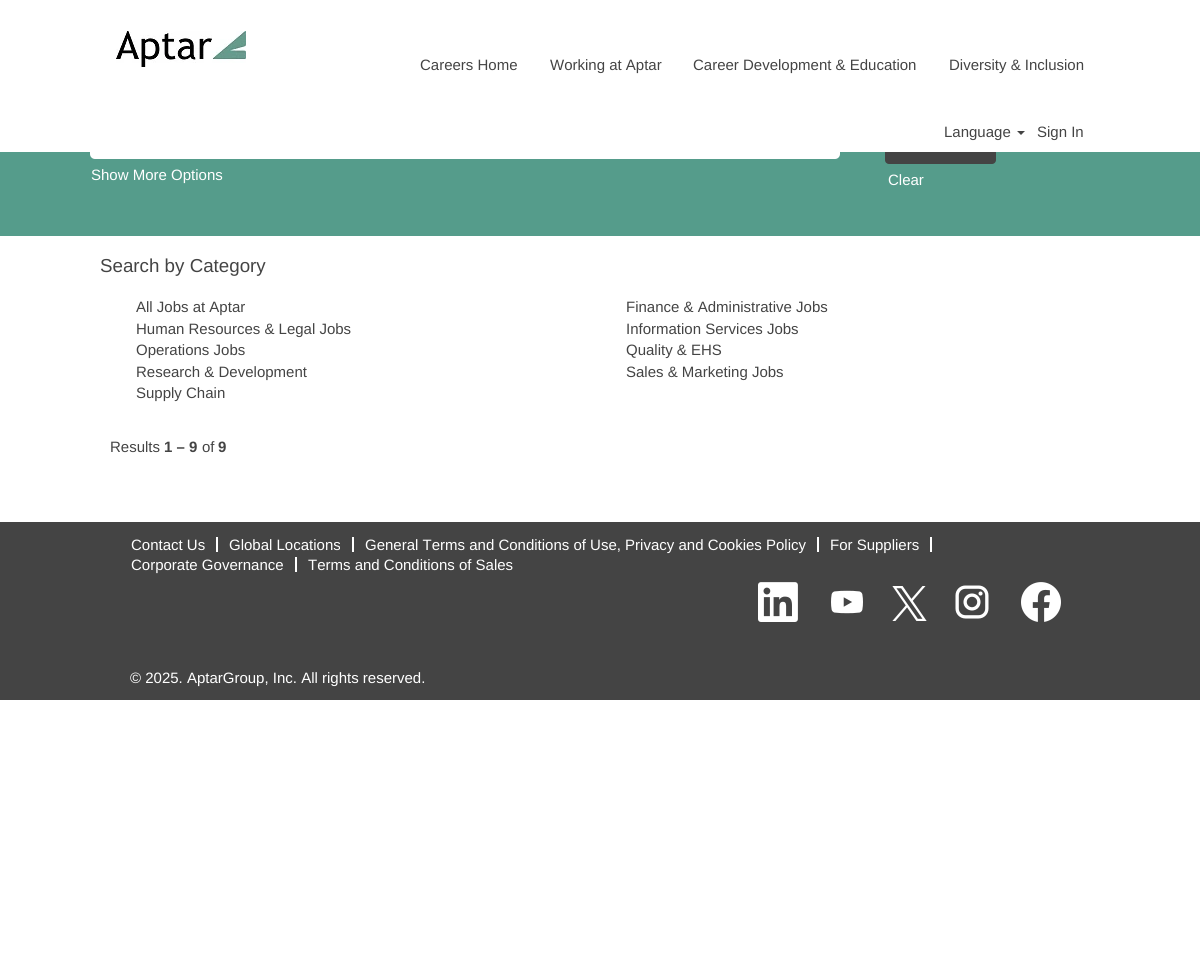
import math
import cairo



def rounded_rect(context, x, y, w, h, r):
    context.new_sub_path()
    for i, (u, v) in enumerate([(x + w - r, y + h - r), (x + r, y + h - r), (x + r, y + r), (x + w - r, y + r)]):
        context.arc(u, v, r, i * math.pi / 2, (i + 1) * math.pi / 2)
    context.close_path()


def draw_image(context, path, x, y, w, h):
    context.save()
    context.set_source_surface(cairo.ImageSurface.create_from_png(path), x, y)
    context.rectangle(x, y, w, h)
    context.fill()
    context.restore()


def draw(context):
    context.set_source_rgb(1, 1, 1)
    context.paint()
    context.set_source_rgb(85 / 255, 156 / 255, 139 / 255)
    context.rectangle(0, 152, 1200, 84)
    context.fill()
    context.set_source_rgb(68 / 255, 68 / 255, 68 / 255)
    rounded_rect(context, 885, 129, 111, 35, 4)
    context.fill()
    context.set_source_rgb(1, 1, 1)
    context.rectangle(885, 129, 111, 23)
    context.fill()
    draw_image(context, "images/1.png", 116, 31, 130, 36)
    context.set_source_rgb(68 / 255, 68 / 255, 68 / 255)
    context.new_path()
    context.move_to(1017, 131)
    context.line_to(1025, 131)
    context.line_to(1021, 135)
    context.close_path()
    context.fill()
    context.set_source_rgb(1, 1, 1)
    rounded_rect(context, 90, 134, 750, 25, 5)
    context.fill()
    context.set_source_rgb(68 / 255, 68 / 255, 68 / 255)
    context.rectangle(0, 522, 1200, 178)
    context.fill()
    context.set_source_rgb(1, 1, 1)
    context.rectangle(216, 537, 2, 15)
    context.fill()
    context.rectangle(352, 537, 2, 15)
    context.fill()
    context.rectangle(817, 537, 2, 15)
    context.fill()
    context.rectangle(930, 537, 2, 15)
    context.fill()
    context.rectangle(295, 557, 2, 15)
    context.fill()
    draw_image(context, "images/2.png", 758, 582, 40, 40)
    draw_image(context, "images/3.png", 831, 590, 32, 24)
    draw_image(context, "images/4.png", 892, 586, 35, 35)
    draw_image(context, "images/5.png", 955, 585, 34, 34)
    draw_image(context, "images/6.png", 1021, 582, 40, 40)
    context.select_font_face("Liberation Sans")
    context.set_font_size(15)
    context.set_source_rgb(68 / 255, 68 / 255, 68 / 255)
    context.move_to(420, 70)
    context.show_text("Careers Home")
    context.move_to(550, 70)
    context.show_text("Working at Aptar")
    context.move_to(693, 70)
    context.show_text("Career Development & Education")
    context.move_to(949, 70)
    context.show_text("Diversity & Inclusion")
    context.move_to(944, 137)
    context.show_text("Language")
    context.move_to(1037, 137)
    context.show_text("Sign In")
    context.set_source_rgb(1, 1, 1)
    context.move_to(91, 180)
    context.show_text("Show More Options")
    context.move_to(888, 185)
    context.show_text("Clear")
    context.set_font_size(18.75)
    context.set_source_rgb(68 / 255, 68 / 255, 68 / 255)
    context.move_to(100, 272)
    context.show_text("Search by Category")
    context.set_font_size(15)
    context.move_to(136, 312)
    context.show_text("All Jobs at Aptar")
    context.move_to(626, 312)
    context.show_text("Finance & Administrative Jobs")
    context.move_to(136, 334)
    context.show_text("Human Resources & Legal Jobs")
    context.move_to(626, 334)
    context.show_text("Information Services Jobs")
    context.move_to(136, 355)
    context.show_text("Operations Jobs")
    context.move_to(626, 355)
    context.show_text("Quality & EHS")
    context.move_to(136, 377)
    context.show_text("Research & Development")
    context.move_to(626, 377)
    context.show_text("Sales & Marketing Jobs")
    context.move_to(136, 398)
    context.show_text("Supply Chain")
    context.move_to(110, 452)
    context.show_text("Results")
    context.select_font_face("Liberation Sans", cairo.FontSlant.NORMAL, cairo.FontWeight.BOLD)
    context.move_to(164, 452)
    context.show_text("1 – 9")
    context.select_font_face("Liberation Sans")
    context.move_to(202, 452)
    context.show_text("of")
    context.select_font_face("Liberation Sans", cairo.FontSlant.NORMAL, cairo.FontWeight.BOLD)
    context.move_to(218, 452)
    context.show_text("9")
    context.select_font_face("Liberation Sans")
    context.set_source_rgb(1, 1, 1)
    context.move_to(131, 550)
    context.show_text("Contact Us")
    context.move_to(229, 550)
    context.show_text("Global Locations")
    context.move_to(365, 550)
    context.show_text("General Terms and Conditions of Use, Privacy and Cookies Policy")
    context.move_to(830, 550)
    context.show_text("For Suppliers")
    context.move_to(131, 570)
    context.show_text("Corporate Governance")
    context.move_to(308, 570)
    context.show_text("Terms and Conditions of Sales")
    context.move_to(130, 683)
    context.show_text("© 2025. AptarGroup, Inc. All rights reserved.")


surface = cairo.ImageSurface(cairo.Format.RGB24, 1200, 975)
context = cairo.Context(surface)
options = cairo.FontOptions()
options.set_hint_metrics(cairo.HintMetrics.OFF)
options.set_hint_style(cairo.HintStyle.NONE)
context.set_font_options(options)
context.set_miter_limit(4)
draw(context)
surface.write_to_png("out.png")
